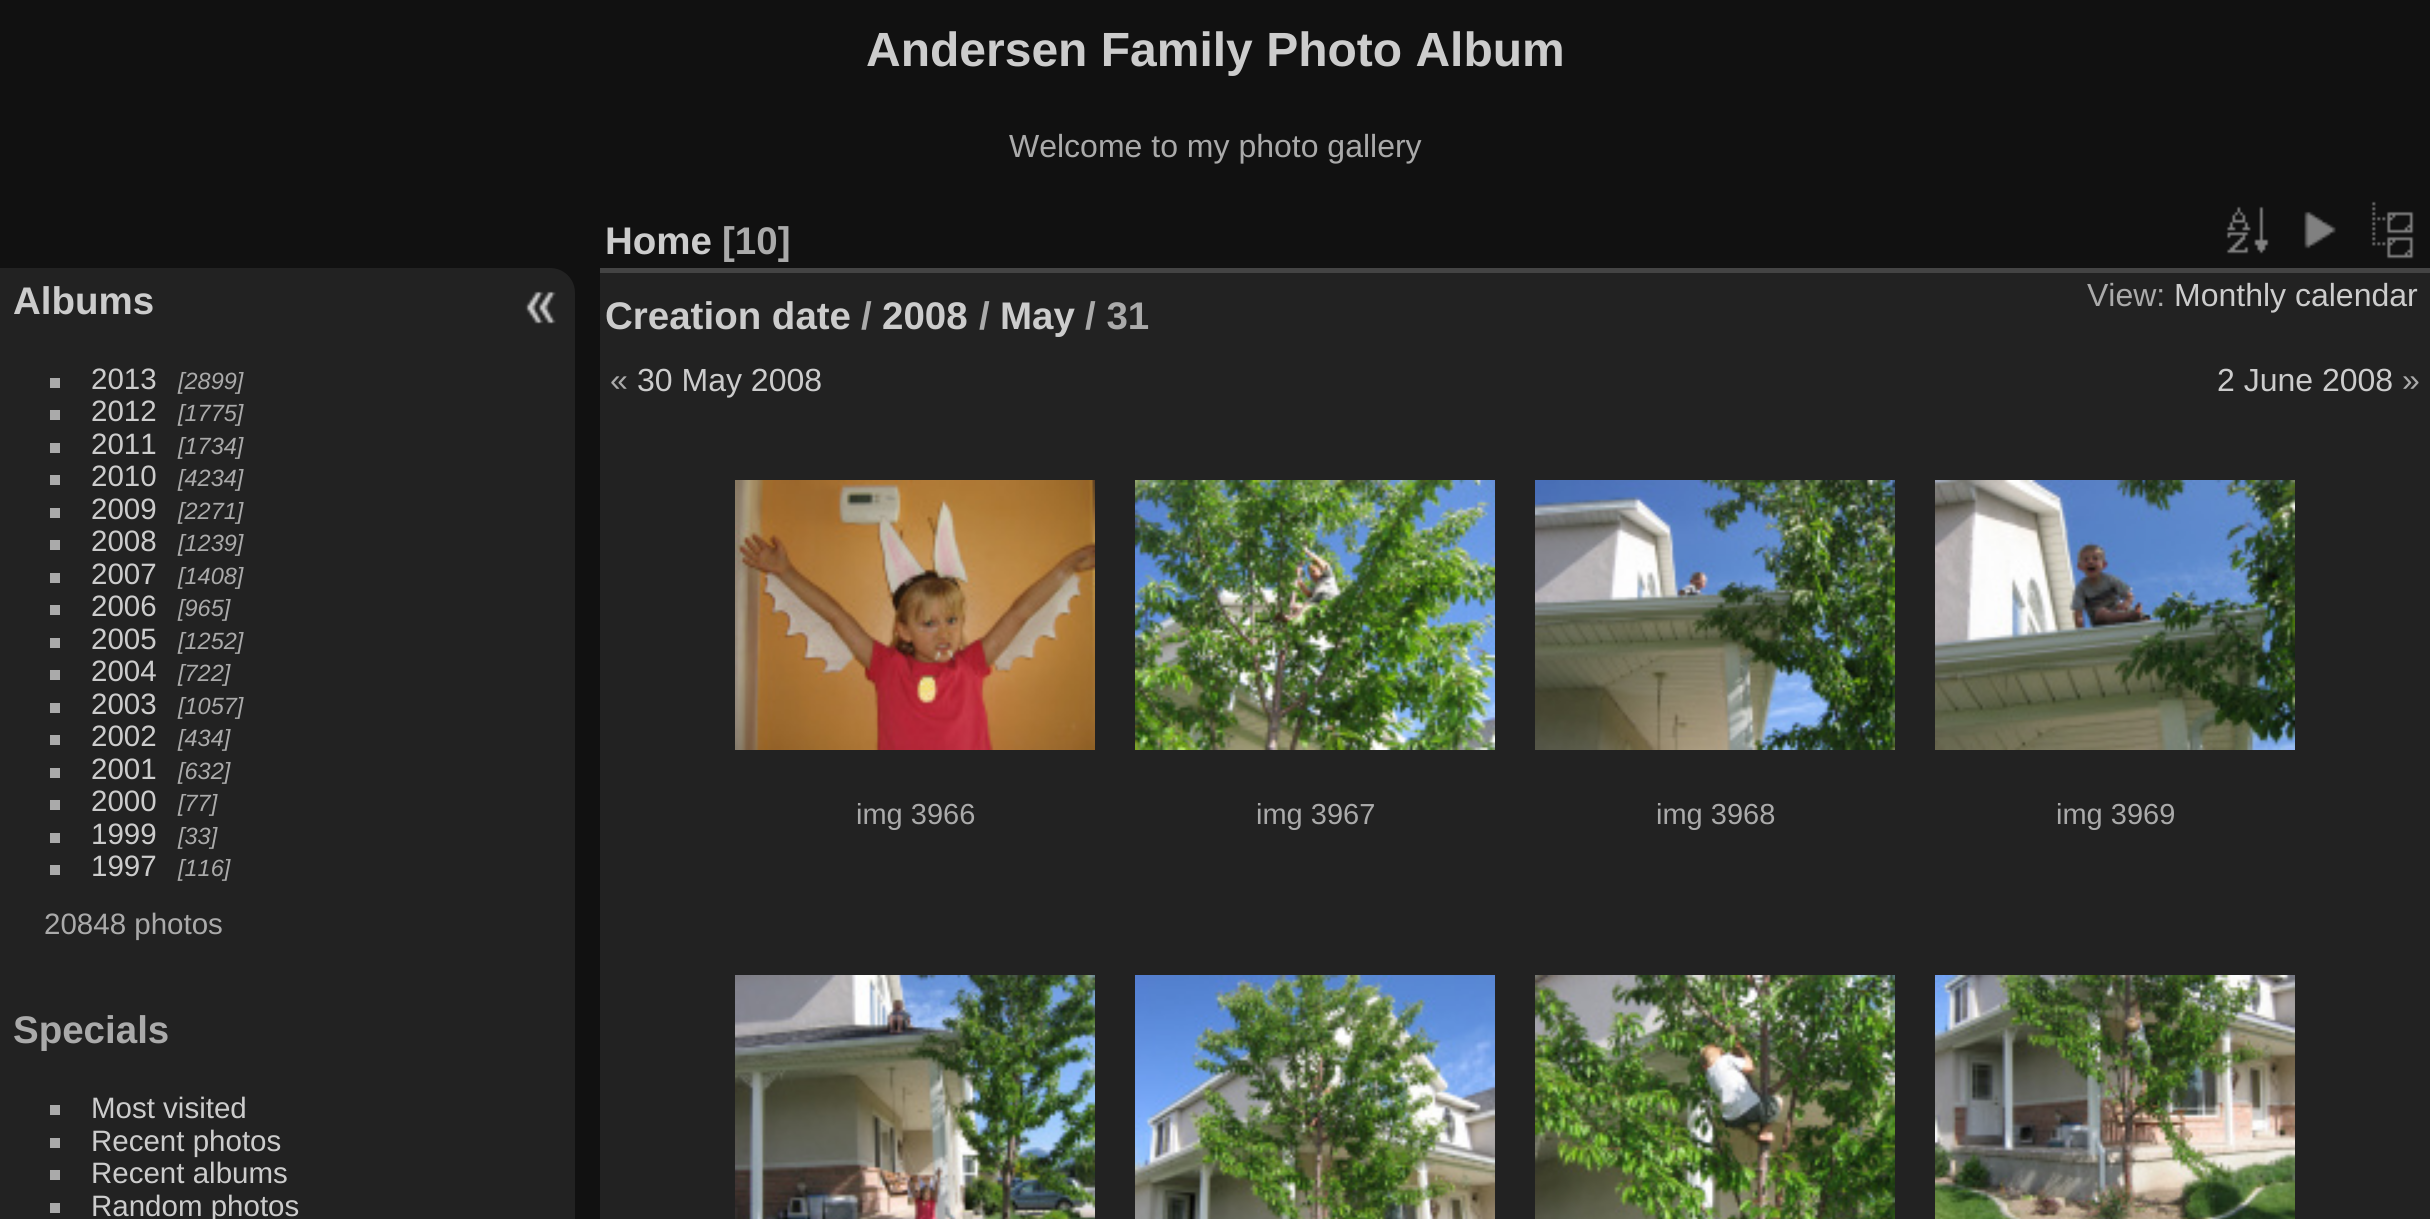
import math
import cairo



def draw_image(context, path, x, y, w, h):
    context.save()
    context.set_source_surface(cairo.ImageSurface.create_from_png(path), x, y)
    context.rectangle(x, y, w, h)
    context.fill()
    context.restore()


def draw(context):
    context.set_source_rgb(17 / 255, 17 / 255, 17 / 255)
    context.paint()
    context.set_source_rgb(34 / 255, 34 / 255, 34 / 255)
    context.new_path()
    context.move_to(0, 268)
    context.line_to(550, 268)
    context.curve_to(564, 268, 575, 279, 575, 293)
    context.line_to(575, 1219)
    context.curve_to(575, 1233, 564, 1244, 550, 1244)
    context.line_to(0, 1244)
    context.close_path()
    context.fill()
    context.set_source_rgb(170 / 255, 170 / 255, 170 / 255)
    context.rectangle(50, 378, 10, 10)
    context.fill()
    context.rectangle(50, 410, 10, 10)
    context.fill()
    context.rectangle(50, 443, 10, 10)
    context.fill()
    context.rectangle(50, 475, 10, 10)
    context.fill()
    context.rectangle(50, 508, 10, 10)
    context.fill()
    context.rectangle(50, 540, 10, 10)
    context.fill()
    context.rectangle(50, 573, 10, 10)
    context.fill()
    context.rectangle(50, 605, 10, 10)
    context.fill()
    context.rectangle(50, 638, 10, 10)
    context.fill()
    context.rectangle(50, 670, 10, 10)
    context.fill()
    context.rectangle(50, 703, 10, 10)
    context.fill()
    context.rectangle(50, 735, 10, 10)
    context.fill()
    context.rectangle(50, 768, 10, 10)
    context.fill()
    context.rectangle(50, 800, 10, 10)
    context.fill()
    context.rectangle(50, 833, 10, 10)
    context.fill()
    context.rectangle(50, 865, 10, 10)
    context.fill()
    context.rectangle(50, 1105, 10, 10)
    context.fill()
    context.rectangle(50, 1138, 10, 10)
    context.fill()
    context.rectangle(50, 1170, 10, 10)
    context.fill()
    context.rectangle(50, 1203, 10, 10)
    context.fill()
    draw_image(context, "images/1.png", 525, 291, 31, 33)
    context.set_source_rgb(34 / 255, 34 / 255, 34 / 255)
    context.rectangle(600, 273, 1830, 946)
    context.fill()
    draw_image(context, "images/2.png", 2226, 206, 43, 48)
    draw_image(context, "images/3.png", 2304, 211, 32, 38)
    draw_image(context, "images/4.png", 2371, 201, 43, 58)
    context.set_source_rgb(68 / 255, 68 / 255, 68 / 255)
    context.rectangle(600, 268, 1830, 5)
    context.fill()
    draw_image(context, "images/5.png", 735, 480, 360, 270)
    draw_image(context, "images/6.png", 1135, 480, 360, 270)
    draw_image(context, "images/7.png", 1535, 480, 360, 270)
    draw_image(context, "images/8.png", 1935, 480, 360, 270)
    draw_image(context, "images/9.png", 735, 975, 360, 244)
    draw_image(context, "images/10.png", 1135, 975, 360, 244)
    draw_image(context, "images/11.png", 1535, 975, 360, 244)
    draw_image(context, "images/12.png", 1935, 975, 360, 244)
    context.select_font_face("Liberation Sans", cairo.FontSlant.NORMAL, cairo.FontWeight.BOLD)
    context.set_font_size(48)
    context.set_source_rgb(204 / 255, 204 / 255, 204 / 255)
    context.move_to(866, 66)
    context.show_text("Andersen Family Photo Album")
    context.select_font_face("Liberation Sans")
    context.set_font_size(32)
    context.set_source_rgb(170 / 255, 170 / 255, 170 / 255)
    context.move_to(1009, 157)
    context.show_text("Welcome to my photo gallery")
    context.select_font_face("Liberation Sans", cairo.FontSlant.NORMAL, cairo.FontWeight.BOLD)
    context.set_font_size(38.5)
    context.set_source_rgb(204 / 255, 204 / 255, 204 / 255)
    context.move_to(13, 314)
    context.show_text("Albums")
    context.select_font_face("Liberation Sans")
    context.set_font_size(29.5)
    context.move_to(91, 389)
    context.show_text("2013")
    context.select_font_face("Liberation Sans", cairo.FontSlant.ITALIC)
    context.set_font_size(23.5)
    context.set_source_rgb(170 / 255, 170 / 255, 170 / 255)
    context.move_to(178, 389)
    context.show_text("[2899]")
    context.select_font_face("Liberation Sans")
    context.set_font_size(29.5)
    context.set_source_rgb(204 / 255, 204 / 255, 204 / 255)
    context.move_to(91, 421)
    context.show_text("2012")
    context.select_font_face("Liberation Sans", cairo.FontSlant.ITALIC)
    context.set_font_size(23.5)
    context.set_source_rgb(170 / 255, 170 / 255, 170 / 255)
    context.move_to(178, 421)
    context.show_text("[1775]")
    context.select_font_face("Liberation Sans")
    context.set_font_size(29.5)
    context.set_source_rgb(204 / 255, 204 / 255, 204 / 255)
    context.move_to(91, 454)
    context.show_text("2011")
    context.select_font_face("Liberation Sans", cairo.FontSlant.ITALIC)
    context.set_font_size(23.5)
    context.set_source_rgb(170 / 255, 170 / 255, 170 / 255)
    context.move_to(178, 454)
    context.show_text("[1734]")
    context.select_font_face("Liberation Sans")
    context.set_font_size(29.5)
    context.set_source_rgb(204 / 255, 204 / 255, 204 / 255)
    context.move_to(91, 486)
    context.show_text("2010")
    context.select_font_face("Liberation Sans", cairo.FontSlant.ITALIC)
    context.set_font_size(23.5)
    context.set_source_rgb(170 / 255, 170 / 255, 170 / 255)
    context.move_to(178, 486)
    context.show_text("[4234]")
    context.select_font_face("Liberation Sans")
    context.set_font_size(29.5)
    context.set_source_rgb(204 / 255, 204 / 255, 204 / 255)
    context.move_to(91, 519)
    context.show_text("2009")
    context.select_font_face("Liberation Sans", cairo.FontSlant.ITALIC)
    context.set_font_size(23.5)
    context.set_source_rgb(170 / 255, 170 / 255, 170 / 255)
    context.move_to(178, 519)
    context.show_text("[2271]")
    context.select_font_face("Liberation Sans")
    context.set_font_size(29.5)
    context.set_source_rgb(204 / 255, 204 / 255, 204 / 255)
    context.move_to(91, 551)
    context.show_text("2008")
    context.select_font_face("Liberation Sans", cairo.FontSlant.ITALIC)
    context.set_font_size(23.5)
    context.set_source_rgb(170 / 255, 170 / 255, 170 / 255)
    context.move_to(178, 551)
    context.show_text("[1239]")
    context.select_font_face("Liberation Sans")
    context.set_font_size(29.5)
    context.set_source_rgb(204 / 255, 204 / 255, 204 / 255)
    context.move_to(91, 584)
    context.show_text("2007")
    context.select_font_face("Liberation Sans", cairo.FontSlant.ITALIC)
    context.set_font_size(23.5)
    context.set_source_rgb(170 / 255, 170 / 255, 170 / 255)
    context.move_to(178, 584)
    context.show_text("[1408]")
    context.select_font_face("Liberation Sans")
    context.set_font_size(29.5)
    context.set_source_rgb(204 / 255, 204 / 255, 204 / 255)
    context.move_to(91, 616)
    context.show_text("2006")
    context.select_font_face("Liberation Sans", cairo.FontSlant.ITALIC)
    context.set_font_size(23.5)
    context.set_source_rgb(170 / 255, 170 / 255, 170 / 255)
    context.move_to(178, 616)
    context.show_text("[965]")
    context.select_font_face("Liberation Sans")
    context.set_font_size(29.5)
    context.set_source_rgb(204 / 255, 204 / 255, 204 / 255)
    context.move_to(91, 649)
    context.show_text("2005")
    context.select_font_face("Liberation Sans", cairo.FontSlant.ITALIC)
    context.set_font_size(23.5)
    context.set_source_rgb(170 / 255, 170 / 255, 170 / 255)
    context.move_to(178, 649)
    context.show_text("[1252]")
    context.select_font_face("Liberation Sans")
    context.set_font_size(29.5)
    context.set_source_rgb(204 / 255, 204 / 255, 204 / 255)
    context.move_to(91, 681)
    context.show_text("2004")
    context.select_font_face("Liberation Sans", cairo.FontSlant.ITALIC)
    context.set_font_size(23.5)
    context.set_source_rgb(170 / 255, 170 / 255, 170 / 255)
    context.move_to(178, 681)
    context.show_text("[722]")
    context.select_font_face("Liberation Sans")
    context.set_font_size(29.5)
    context.set_source_rgb(204 / 255, 204 / 255, 204 / 255)
    context.move_to(91, 714)
    context.show_text("2003")
    context.select_font_face("Liberation Sans", cairo.FontSlant.ITALIC)
    context.set_font_size(23.5)
    context.set_source_rgb(170 / 255, 170 / 255, 170 / 255)
    context.move_to(178, 714)
    context.show_text("[1057]")
    context.select_font_face("Liberation Sans")
    context.set_font_size(29.5)
    context.set_source_rgb(204 / 255, 204 / 255, 204 / 255)
    context.move_to(91, 746)
    context.show_text("2002")
    context.select_font_face("Liberation Sans", cairo.FontSlant.ITALIC)
    context.set_font_size(23.5)
    context.set_source_rgb(170 / 255, 170 / 255, 170 / 255)
    context.move_to(178, 746)
    context.show_text("[434]")
    context.select_font_face("Liberation Sans")
    context.set_font_size(29.5)
    context.set_source_rgb(204 / 255, 204 / 255, 204 / 255)
    context.move_to(91, 779)
    context.show_text("2001")
    context.select_font_face("Liberation Sans", cairo.FontSlant.ITALIC)
    context.set_font_size(23.5)
    context.set_source_rgb(170 / 255, 170 / 255, 170 / 255)
    context.move_to(178, 779)
    context.show_text("[632]")
    context.select_font_face("Liberation Sans")
    context.set_font_size(29.5)
    context.set_source_rgb(204 / 255, 204 / 255, 204 / 255)
    context.move_to(91, 811)
    context.show_text("2000")
    context.select_font_face("Liberation Sans", cairo.FontSlant.ITALIC)
    context.set_font_size(23.5)
    context.set_source_rgb(170 / 255, 170 / 255, 170 / 255)
    context.move_to(178, 811)
    context.show_text("[77]")
    context.select_font_face("Liberation Sans")
    context.set_font_size(29.5)
    context.set_source_rgb(204 / 255, 204 / 255, 204 / 255)
    context.move_to(91, 844)
    context.show_text("1999")
    context.select_font_face("Liberation Sans", cairo.FontSlant.ITALIC)
    context.set_font_size(23.5)
    context.set_source_rgb(170 / 255, 170 / 255, 170 / 255)
    context.move_to(178, 844)
    context.show_text("[33]")
    context.select_font_face("Liberation Sans")
    context.set_font_size(29.5)
    context.set_source_rgb(204 / 255, 204 / 255, 204 / 255)
    context.move_to(91, 876)
    context.show_text("1997")
    context.select_font_face("Liberation Sans", cairo.FontSlant.ITALIC)
    context.set_font_size(23.5)
    context.set_source_rgb(170 / 255, 170 / 255, 170 / 255)
    context.move_to(178, 876)
    context.show_text("[116]")
    context.select_font_face("Liberation Sans")
    context.set_font_size(29.5)
    context.move_to(44, 934)
    context.show_text("20848 photos")
    context.select_font_face("Liberation Sans", cairo.FontSlant.NORMAL, cairo.FontWeight.BOLD)
    context.set_font_size(38.5)
    context.move_to(13, 1043)
    context.show_text("Specials")
    context.select_font_face("Liberation Sans")
    context.set_font_size(29.5)
    context.set_source_rgb(204 / 255, 204 / 255, 204 / 255)
    context.move_to(91, 1118)
    context.show_text("Most visited")
    context.move_to(91, 1151)
    context.show_text("Recent photos")
    context.move_to(91, 1183)
    context.show_text("Recent albums")
    context.move_to(91, 1216)
    context.show_text("Random photos")
    context.select_font_face("Liberation Sans", cairo.FontSlant.NORMAL, cairo.FontWeight.BOLD)
    context.set_font_size(38.5)
    context.move_to(605, 254)
    context.show_text("Home")
    context.set_source_rgb(170 / 255, 170 / 255, 170 / 255)
    context.move_to(722, 254)
    context.show_text("[10]")
    context.select_font_face("Liberation Sans")
    context.set_font_size(32)
    context.move_to(2087, 306)
    context.show_text("View:")
    context.set_source_rgb(204 / 255, 204 / 255, 204 / 255)
    context.move_to(2174, 306)
    context.show_text("Monthly calendar")
    context.select_font_face("Liberation Sans", cairo.FontSlant.NORMAL, cairo.FontWeight.BOLD)
    context.set_font_size(38.5)
    context.move_to(605, 329)
    context.show_text("Creation date")
    context.set_source_rgb(170 / 255, 170 / 255, 170 / 255)
    context.move_to(861, 329)
    context.show_text("/")
    context.set_source_rgb(204 / 255, 204 / 255, 204 / 255)
    context.move_to(882, 329)
    context.show_text("2008")
    context.set_source_rgb(170 / 255, 170 / 255, 170 / 255)
    context.move_to(979, 329)
    context.show_text("/")
    context.set_source_rgb(204 / 255, 204 / 255, 204 / 255)
    context.move_to(1000, 329)
    context.show_text("May")
    context.set_source_rgb(170 / 255, 170 / 255, 170 / 255)
    context.move_to(1085, 329)
    context.show_text("/ 31")
    context.select_font_face("Liberation Sans")
    context.set_font_size(32)
    context.move_to(610, 391)
    context.show_text("«")
    context.set_source_rgb(204 / 255, 204 / 255, 204 / 255)
    context.move_to(637, 391)
    context.show_text("30 May 2008")
    context.move_to(2217, 391)
    context.show_text("2 June 2008")
    context.set_source_rgb(170 / 255, 170 / 255, 170 / 255)
    context.move_to(2402, 391)
    context.show_text("»")
    context.set_font_size(29)
    context.move_to(856, 824)
    context.show_text("img 3966")
    context.move_to(1256, 824)
    context.show_text("img 3967")
    context.move_to(1656, 824)
    context.show_text("img 3968")
    context.move_to(2056, 824)
    context.show_text("img 3969")


surface = cairo.ImageSurface(cairo.Format.RGB24, 2430, 1219)
context = cairo.Context(surface)
options = cairo.FontOptions()
options.set_hint_metrics(cairo.HintMetrics.OFF)
options.set_hint_style(cairo.HintStyle.NONE)
context.set_font_options(options)
context.set_miter_limit(4)
draw(context)
surface.write_to_png("out.png")
